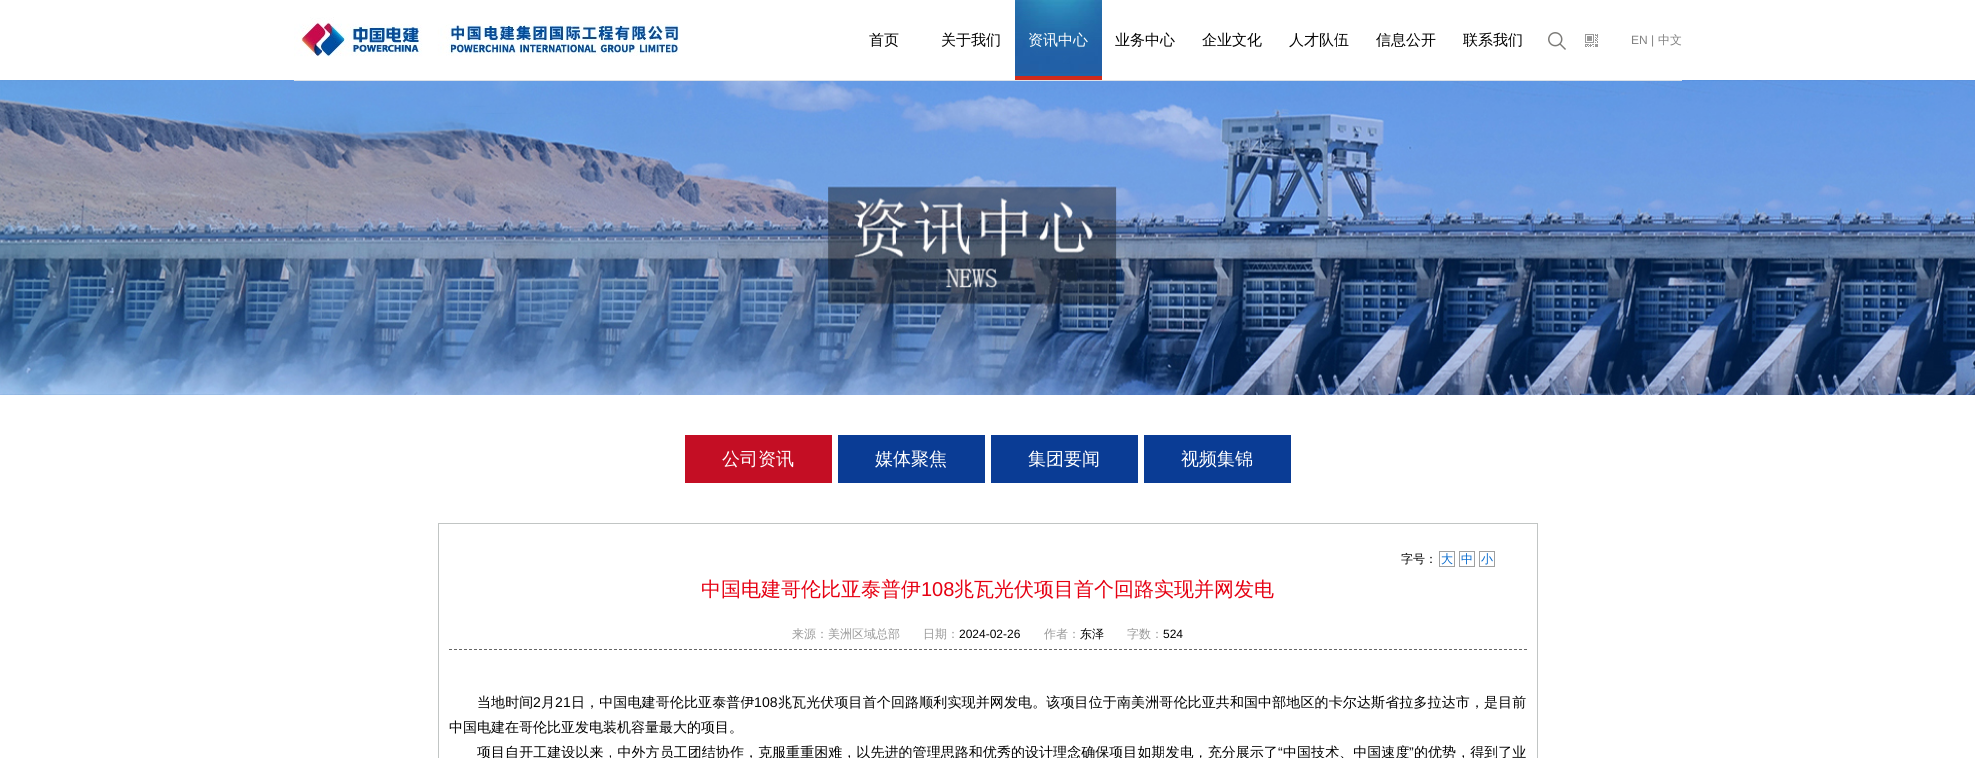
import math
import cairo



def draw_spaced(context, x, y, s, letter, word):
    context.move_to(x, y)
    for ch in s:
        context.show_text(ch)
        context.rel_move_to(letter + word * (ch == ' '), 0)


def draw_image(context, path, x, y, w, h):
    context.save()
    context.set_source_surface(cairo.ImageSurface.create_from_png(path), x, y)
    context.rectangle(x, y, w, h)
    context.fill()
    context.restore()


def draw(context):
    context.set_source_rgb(1, 1, 1)
    context.paint()
    draw_image(context, "images/1.png", 294, 17, 385, 40)
    draw_image(context, "images/2.png", 1015, 0, 87, 80)
    draw_image(context, "images/3.png", 1548, 32, 18, 18)
    draw_image(context, "images/4.png", 1585, 34, 13, 13)
    draw_image(context, "images/5.png", 0, 80, 1975, 315)
    context.set_source_rgba(1, 1, 1, 0.9)
    context.rectangle(294, 80, 1388, 1)
    context.fill()
    context.set_source_rgba(0, 0, 0, 0.08)
    context.rectangle(294, 80, 1388, 1)
    context.fill()
    context.set_source_rgb(196 / 255, 14 / 255, 36 / 255)
    context.rectangle(685, 435, 147, 48)
    context.fill()
    context.set_source_rgb(10 / 255, 60 / 255, 149 / 255)
    context.rectangle(838, 435, 147, 48)
    context.fill()
    context.rectangle(991, 435, 147, 48)
    context.fill()
    context.rectangle(1144, 435, 147, 48)
    context.fill()
    context.rectangle(438.5, 523.5, 1099, 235)
    context.set_source_rgb(193 / 255, 197 / 255, 196 / 255)
    context.set_line_width(1)
    context.stroke()
    context.rectangle(1439.5, 551.5, 15, 15)
    context.set_source_rgb(159 / 255, 160 / 255, 160 / 255)
    context.stroke()
    context.rectangle(1459.5, 551.5, 15, 15)
    context.stroke()
    context.rectangle(1479.5, 551.5, 15, 15)
    context.stroke()
    context.new_path()
    context.move_to(449, 649.5)
    context.line_to(1527, 649.5)
    context.set_source_rgb(102 / 255, 102 / 255, 102 / 255)
    context.set_dash([3, 2])
    context.stroke()
    context.select_font_face("WenQuanYi Zen Hei Medium")
    context.set_font_size(15)
    context.set_source_rgb(0, 0, 0)
    context.move_to(869, 45)
    context.show_text("首页")
    context.move_to(941, 45)
    context.show_text("关于我们")
    context.set_source_rgb(1, 1, 1)
    context.move_to(1028, 45)
    context.show_text("资讯中心")
    context.set_source_rgb(0, 0, 0)
    context.move_to(1115, 45)
    context.show_text("业务中心")
    context.move_to(1202, 45)
    context.show_text("企业文化")
    context.move_to(1289, 45)
    context.show_text("人才队伍")
    context.move_to(1376, 45)
    context.show_text("信息公开")
    context.move_to(1463, 45)
    context.show_text("联系我们")
    context.select_font_face("Liberation Sans")
    context.set_font_size(12)
    context.set_source_rgb(128 / 255, 128 / 255, 128 / 255)
    context.move_to(1631, 44)
    context.show_text("EN |")
    context.select_font_face("WenQuanYi Zen Hei Medium")
    context.move_to(1658, 44)
    context.show_text("中文")
    context.set_font_size(18)
    context.set_source_rgb(1, 1, 1)
    context.move_to(722, 465)
    context.show_text("公司资讯")
    context.move_to(875, 465)
    context.show_text("媒体聚焦")
    context.move_to(1028, 465)
    context.show_text("集团要闻")
    context.move_to(1181, 465)
    context.show_text("视频集锦")
    context.set_font_size(12)
    context.set_source_rgb(0, 0, 0)
    context.move_to(1401, 563)
    context.show_text("字号：")
    context.set_source_rgb(0, 102 / 255, 204 / 255)
    context.move_to(1441, 563)
    context.show_text("大")
    context.move_to(1461, 563)
    context.show_text("中")
    context.move_to(1481, 563)
    context.show_text("小")
    context.set_font_size(20)
    context.set_source_rgb(230 / 255, 0, 18 / 255)
    context.move_to(701, 596)
    context.show_text("中国电建哥伦比亚泰普伊")
    context.select_font_face("Liberation Sans")
    context.move_to(921, 596)
    context.show_text("108")
    context.select_font_face("WenQuanYi Zen Hei Medium")
    context.move_to(954, 596)
    context.show_text("兆瓦光伏项目首个回路实现并网发电")
    context.set_font_size(12)
    context.set_source_rgb(153 / 255, 153 / 255, 153 / 255)
    context.move_to(792, 638)
    context.show_text("来源：美洲区域总部")
    context.move_to(923, 638)
    context.show_text("日期：")
    context.select_font_face("Liberation Sans")
    context.set_source_rgb(0, 0, 0)
    context.move_to(959, 638)
    context.show_text("2024-02-26")
    context.select_font_face("WenQuanYi Zen Hei Medium")
    context.set_source_rgb(153 / 255, 153 / 255, 153 / 255)
    context.move_to(1044, 638)
    context.show_text("作者：")
    context.set_source_rgb(0, 0, 0)
    context.move_to(1080, 638)
    context.show_text("东泽")
    context.set_source_rgb(153 / 255, 153 / 255, 153 / 255)
    context.move_to(1127, 638)
    context.show_text("字数：")
    context.select_font_face("Liberation Sans")
    context.set_source_rgb(0, 0, 0)
    context.move_to(1163, 638)
    context.show_text("524")
    context.select_font_face("WenQuanYi Zen Hei Medium")
    context.set_font_size(14)
    draw_spaced(context, 477, 707, "当地时间", 0.12, 0)
    context.select_font_face("Liberation Sans")
    draw_spaced(context, 533, 707, "2", 0.12, 0)
    context.select_font_face("WenQuanYi Zen Hei Medium")
    draw_spaced(context, 541, 707, "月", 0.12, 0)
    context.select_font_face("Liberation Sans")
    draw_spaced(context, 555, 707, "21", 0.12, 0)
    context.select_font_face("WenQuanYi Zen Hei Medium")
    draw_spaced(context, 571, 707, "日，中国电建哥伦比亚泰普伊", 0.12, 0)
    context.select_font_face("Liberation Sans")
    draw_spaced(context, 754, 707, "108", 0.12, 0)
    context.select_font_face("WenQuanYi Zen Hei Medium")
    draw_spaced(context, 778, 707, "兆瓦光伏项目首个回路顺利实现并网发电。该项目位于南美洲哥伦比亚共和国中部地区的卡尔达斯省拉多拉达市，是目前", 0.12, 0)
    context.move_to(449, 732)
    context.show_text("中国电建在哥伦比亚发电装机容量最大的项目。")
    draw_spaced(context, 477, 757, "项目自开工建设以来，中外方员工团结协作，克服重重困难，以先进的管理思路和优秀的设计理念确保项目如期发电，充分展示了", 0.05, 0)
    context.select_font_face("Liberation Sans")
    draw_spaced(context, 1278, 757, "“", 0.05, 0)
    context.select_font_face("WenQuanYi Zen Hei Medium")
    draw_spaced(context, 1283, 757, "中国技术、中国速度", 0.05, 0)
    context.select_font_face("Liberation Sans")
    draw_spaced(context, 1409, 757, "”", 0.05, 0)
    context.select_font_face("WenQuanYi Zen Hei Medium")
    draw_spaced(context, 1414, 757, "的优势，得到了业", 0.05, 0)


surface = cairo.ImageSurface(cairo.Format.RGB24, 1975, 758)
context = cairo.Context(surface)
options = cairo.FontOptions()
options.set_hint_metrics(cairo.HintMetrics.OFF)
options.set_hint_style(cairo.HintStyle.NONE)
context.set_font_options(options)
context.set_miter_limit(4)
draw(context)
surface.write_to_png("out.png")
